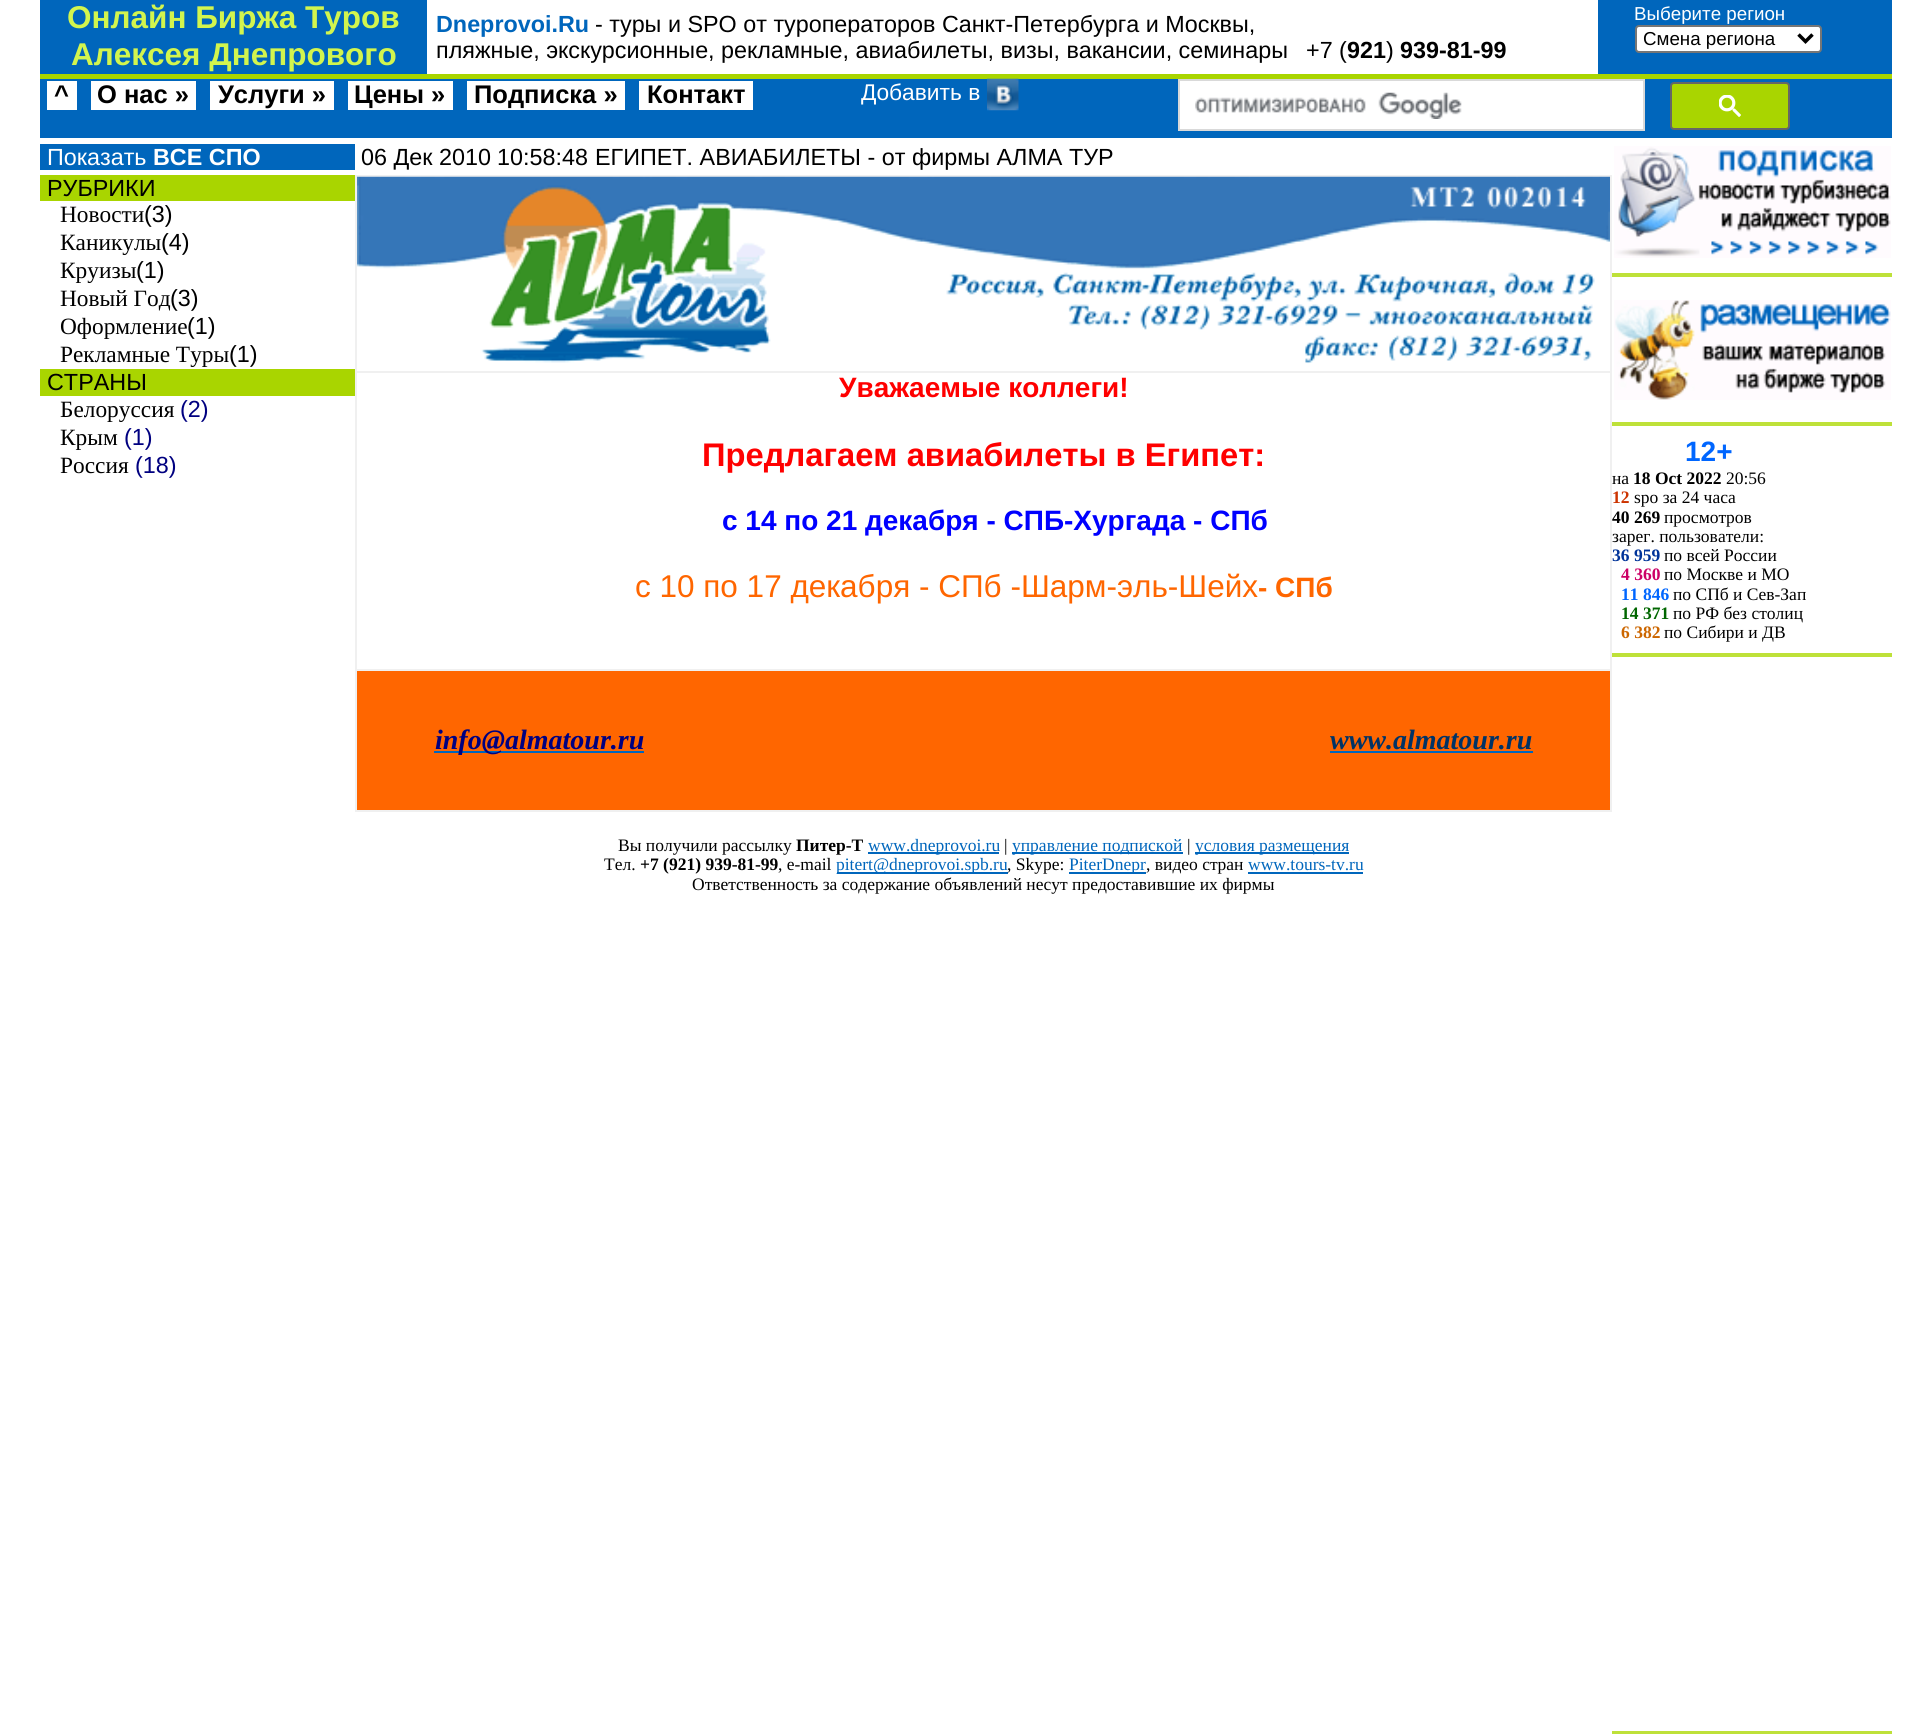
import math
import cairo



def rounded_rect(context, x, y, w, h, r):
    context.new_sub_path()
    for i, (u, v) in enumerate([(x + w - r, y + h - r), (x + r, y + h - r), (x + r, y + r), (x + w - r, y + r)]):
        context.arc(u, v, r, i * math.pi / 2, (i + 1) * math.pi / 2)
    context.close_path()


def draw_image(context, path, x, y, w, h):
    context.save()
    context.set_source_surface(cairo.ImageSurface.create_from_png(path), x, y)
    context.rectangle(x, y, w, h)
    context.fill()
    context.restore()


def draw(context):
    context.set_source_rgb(1, 1, 1)
    context.paint()
    context.set_source_rgb(0, 102 / 255, 188 / 255)
    context.rectangle(40, 0, 1852, 74)
    context.fill()
    context.set_source_rgb(1, 1, 1)
    context.rectangle(427, 0, 1171, 74)
    context.fill()
    rounded_rect(context, 1636, 26, 185, 26, 3)
    context.fill_preserve()
    context.set_source_rgb(118 / 255, 118 / 255, 118 / 255)
    context.stroke()
    context.new_path()
    context.move_to(1798.5, 34.5)
    context.line_to(1805.5, 41.5)
    context.line_to(1812.5, 34.5)
    context.set_source_rgb(0, 0, 0)
    context.set_line_width(3.5)
    context.stroke()
    context.set_source_rgb(169 / 255, 213 / 255, 0)
    context.rectangle(40, 74, 1852, 5)
    context.fill()
    context.set_source_rgb(0, 102 / 255, 188 / 255)
    context.rectangle(40, 79, 1852, 59)
    context.fill()
    context.set_source_rgb(1, 1, 1)
    context.rectangle(47, 81, 30, 29)
    context.fill()
    context.rectangle(91, 81, 105, 29)
    context.fill()
    context.rectangle(210, 81, 124, 29)
    context.fill()
    context.rectangle(348, 81, 105, 29)
    context.fill()
    context.rectangle(467, 81, 158, 29)
    context.fill()
    context.rectangle(639, 81, 114, 29)
    context.fill()
    draw_image(context, "images/1.png", 987, 78, 32, 33)
    context.rectangle(1179, 80, 465, 50)
    context.fill_preserve()
    context.set_source_rgb(217 / 255, 217 / 255, 217 / 255)
    context.set_line_width(2)
    context.stroke()
    draw_image(context, "images/2.png", 1195, 92, 267, 27)
    context.set_source_rgb(169 / 255, 213 / 255, 0)
    rounded_rect(context, 1671, 83, 118, 46, 3)
    context.fill_preserve()
    context.set_source_rgb(102 / 255, 102 / 255, 102 / 255)
    context.stroke()
    draw_image(context, "images/3.png", 1719, 95, 22, 22)
    context.set_source_rgb(0, 102 / 255, 188 / 255)
    context.rectangle(40, 144, 315, 26)
    context.fill()
    context.set_source_rgb(169 / 255, 213 / 255, 0)
    context.rectangle(40, 175, 315, 26)
    context.fill()
    context.rectangle(40, 369, 315, 27)
    context.fill()
    context.set_source_rgb(240 / 255, 240 / 255, 240 / 255)
    context.rectangle(355, 175, 1257, 2)
    context.fill()
    context.rectangle(1610, 175, 2, 637)
    context.fill()
    context.rectangle(355, 810, 1257, 2)
    context.fill()
    context.rectangle(355, 175, 2, 637)
    context.fill()
    draw_image(context, "images/4.png", 357, 176, 1253, 188)
    context.rectangle(355, 371, 1257, 2)
    context.fill()
    context.set_source_rgb(1, 102 / 255, 0)
    context.rectangle(357, 671, 1253, 139)
    context.fill()
    context.set_source_rgb(240 / 255, 240 / 255, 240 / 255)
    context.rectangle(355, 669, 1257, 2)
    context.fill()
    context.set_source_rgb(0, 102 / 255, 188 / 255)
    context.rectangle(434, 751, 210, 2)
    context.fill()
    context.rectangle(1330, 751, 203, 2)
    context.fill()
    context.rectangle(868, 852, 131, 2)
    context.fill()
    context.rectangle(1012, 852, 171, 2)
    context.fill()
    context.rectangle(1195, 852, 154, 2)
    context.fill()
    context.rectangle(837, 872, 171, 2)
    context.fill()
    context.rectangle(1069, 872, 77, 2)
    context.fill()
    context.rectangle(1248, 872, 115, 2)
    context.fill()
    draw_image(context, "images/5.png", 1614, 146, 277, 112)
    context.set_source_rgb(190 / 255, 225 / 255, 57 / 255)
    context.rectangle(1612, 273, 280, 4)
    context.fill()
    draw_image(context, "images/6.png", 1614, 300, 277, 100)
    context.rectangle(1612, 422, 280, 4)
    context.fill()
    context.rectangle(1612, 653, 280, 4)
    context.fill()
    context.rectangle(1612, 1731, 280, 3)
    context.fill()
    context.select_font_face("Liberation Sans", cairo.FontSlant.NORMAL, cairo.FontWeight.BOLD)
    context.set_font_size(31.5)
    context.set_source_rgb(210 / 255, 245 / 255, 78 / 255)
    context.move_to(67, 28)
    context.show_text("Онлайн Биржа Туров")
    context.move_to(71, 65)
    context.show_text("Алексея Днепрового")
    context.set_font_size(23.35)
    context.set_source_rgb(0, 102 / 255, 188 / 255)
    context.move_to(436, 32)
    context.show_text("Dneprovoi.Ru")
    context.select_font_face("Liberation Sans")
    context.set_source_rgb(0, 0, 0)
    context.move_to(595, 32)
    context.show_text("- туры и SPO от туроператоров Санкт-Петербурга и Москвы,")
    context.move_to(436, 58)
    context.show_text("пляжные, экскурсионные, рекламные, авиабилеты, визы, вакансии, семинары")
    context.move_to(1306, 58)
    context.show_text("+7 (")
    context.select_font_face("Liberation Sans", cairo.FontSlant.NORMAL, cairo.FontWeight.BOLD)
    context.move_to(1347, 58)
    context.show_text("921")
    context.select_font_face("Liberation Sans")
    context.move_to(1386, 58)
    context.show_text(")")
    context.select_font_face("Liberation Sans", cairo.FontSlant.NORMAL, cairo.FontWeight.BOLD)
    context.move_to(1400, 58)
    context.show_text("939-81-99")
    context.select_font_face("Liberation Sans")
    context.set_font_size(18.75)
    context.set_source_rgb(1, 1, 1)
    context.move_to(1634, 20)
    context.show_text("Выберите регион")
    context.set_source_rgb(0, 0, 0)
    context.move_to(1643, 45)
    context.show_text("Смена региона")
    context.select_font_face("Liberation Sans", cairo.FontSlant.NORMAL, cairo.FontWeight.BOLD)
    context.set_font_size(25.5)
    context.move_to(54, 103)
    context.show_text("^")
    context.move_to(97, 103)
    context.show_text("О нас »")
    context.move_to(218, 103)
    context.show_text("Услуги »")
    context.move_to(354, 103)
    context.show_text("Цены »")
    context.move_to(474, 103)
    context.show_text("Подписка »")
    context.move_to(647, 103)
    context.show_text("Контакт")
    context.select_font_face("Liberation Sans")
    context.set_font_size(22.75)
    context.set_source_rgb(1, 1, 1)
    context.move_to(861, 100)
    context.show_text("Добавить в")
    context.set_font_size(23.35)
    context.move_to(47, 165)
    context.show_text("Показать")
    context.select_font_face("Liberation Sans", cairo.FontSlant.NORMAL, cairo.FontWeight.BOLD)
    context.move_to(153, 165)
    context.show_text("ВСЕ СПО")
    context.select_font_face("Liberation Sans")
    context.set_source_rgb(0, 0, 0)
    context.move_to(47, 196)
    context.show_text("РУБРИКИ")
    context.select_font_face("Liberation Serif")
    context.move_to(60, 222)
    context.show_text("Новости")
    context.select_font_face("Liberation Sans")
    context.move_to(144, 222)
    context.show_text("(3)")
    context.select_font_face("Liberation Serif")
    context.move_to(60, 250)
    context.show_text("Каникулы")
    context.select_font_face("Liberation Sans")
    context.move_to(161, 250)
    context.show_text("(4)")
    context.select_font_face("Liberation Serif")
    context.move_to(60, 278)
    context.show_text("Круизы")
    context.select_font_face("Liberation Sans")
    context.move_to(136, 278)
    context.show_text("(1)")
    context.select_font_face("Liberation Serif")
    context.move_to(60, 306)
    context.show_text("Новый Год")
    context.select_font_face("Liberation Sans")
    context.move_to(170, 306)
    context.show_text("(3)")
    context.select_font_face("Liberation Serif")
    context.move_to(60, 334)
    context.show_text("Оформление")
    context.select_font_face("Liberation Sans")
    context.move_to(187, 334)
    context.show_text("(1)")
    context.select_font_face("Liberation Serif")
    context.move_to(60, 362)
    context.show_text("Рекламные Туры")
    context.select_font_face("Liberation Sans")
    context.move_to(229, 362)
    context.show_text("(1)")
    context.move_to(47, 390)
    context.show_text("СТРАНЫ")
    context.select_font_face("Liberation Serif")
    context.move_to(60, 417)
    context.show_text("Белоруссия")
    context.select_font_face("Liberation Sans")
    context.set_source_rgb(0, 0, 128 / 255)
    context.move_to(180, 417)
    context.show_text("(2)")
    context.select_font_face("Liberation Serif")
    context.set_source_rgb(0, 0, 0)
    context.move_to(60, 445)
    context.show_text("Крым")
    context.select_font_face("Liberation Sans")
    context.set_source_rgb(0, 0, 128 / 255)
    context.move_to(124, 445)
    context.show_text("(1)")
    context.select_font_face("Liberation Serif")
    context.set_source_rgb(0, 0, 0)
    context.move_to(60, 473)
    context.show_text("Россия")
    context.select_font_face("Liberation Sans")
    context.set_source_rgb(0, 0, 128 / 255)
    context.move_to(135, 473)
    context.show_text("(18)")
    context.set_source_rgb(0, 0, 0)
    context.move_to(361, 165)
    context.show_text("06 Дек 2010")
    context.move_to(497, 165)
    context.show_text("10:58:48")
    context.move_to(595, 165)
    context.show_text("ЕГИПЕТ. АВИАБИЛЕТЫ - от фирмы АЛМА ТУР")
    context.select_font_face("Liberation Sans", cairo.FontSlant.NORMAL, cairo.FontWeight.BOLD)
    context.set_font_size(28)
    context.set_source_rgb(1, 0, 0)
    context.move_to(839, 397)
    context.show_text("Уважаемые коллеги!")
    context.set_font_size(32.7)
    context.move_to(702, 466)
    context.show_text("Предлагаем авиабилеты в Египет:")
    context.set_font_size(28)
    context.set_source_rgb(0, 0, 1)
    context.move_to(722, 530)
    context.show_text("с 14 по 21 декабря - СПБ-Хургада - СПб")
    context.select_font_face("Liberation Sans")
    context.set_font_size(31.5)
    context.set_source_rgb(1, 102 / 255, 0)
    context.move_to(635, 597)
    context.show_text("c 10 по 17 декабря - СПб -Шарм-эль-Шейх")
    context.select_font_face("Liberation Sans", cairo.FontSlant.NORMAL, cairo.FontWeight.BOLD)
    context.set_font_size(28)
    context.move_to(1258, 597)
    context.show_text("- СПб")
    context.select_font_face("Liberation Serif", cairo.FontSlant.ITALIC, cairo.FontWeight.BOLD)
    context.set_source_rgb(0, 0, 128 / 255)
    context.move_to(435, 749)
    context.show_text("info@almatour.ru")
    context.set_source_rgb(0, 51 / 255, 102 / 255)
    context.move_to(1330, 749)
    context.show_text("www.almatour.ru")
    context.select_font_face("Liberation Serif")
    context.set_font_size(17.5)
    context.set_source_rgb(0, 0, 0)
    context.move_to(618, 851)
    context.show_text("Вы получили рассылку")
    context.select_font_face("Liberation Serif", cairo.FontSlant.NORMAL, cairo.FontWeight.BOLD)
    context.move_to(796, 851)
    context.show_text("Питер-Т")
    context.select_font_face("Liberation Serif")
    context.set_source_rgb(0, 102 / 255, 188 / 255)
    context.move_to(868, 851)
    context.show_text("www.dneprovoi.ru")
    context.set_source_rgb(0, 0, 0)
    context.move_to(1004, 851)
    context.show_text("|")
    context.set_source_rgb(0, 102 / 255, 188 / 255)
    context.move_to(1012, 851)
    context.show_text("управление подпиской")
    context.set_source_rgb(0, 0, 0)
    context.move_to(1187, 851)
    context.show_text("|")
    context.set_source_rgb(0, 102 / 255, 188 / 255)
    context.move_to(1195, 851)
    context.show_text("условия размещения")
    context.set_source_rgb(0, 0, 0)
    context.move_to(604, 870)
    context.show_text("Тел.")
    context.select_font_face("Liberation Serif", cairo.FontSlant.NORMAL, cairo.FontWeight.BOLD)
    context.move_to(640, 870)
    context.show_text("+7 (921) 939-81-99")
    context.select_font_face("Liberation Serif")
    context.move_to(778, 870)
    context.show_text(", е-mail")
    context.set_source_rgb(0, 102 / 255, 188 / 255)
    context.move_to(836, 870)
    context.show_text("pitert@dneprovoi.spb.ru")
    context.set_source_rgb(0, 0, 0)
    context.move_to(1007, 870)
    context.show_text(", Skype:")
    context.set_source_rgb(0, 102 / 255, 188 / 255)
    context.move_to(1069, 870)
    context.show_text("PiterDnepr")
    context.set_source_rgb(0, 0, 0)
    context.move_to(1146, 870)
    context.show_text(", видео стран")
    context.set_source_rgb(0, 102 / 255, 188 / 255)
    context.move_to(1248, 870)
    context.show_text("www.tours-tv.ru")
    context.set_source_rgb(0, 0, 0)
    context.move_to(692, 890)
    context.show_text("Ответственность за содержание объявлений несут предоставившие их фирмы")
    context.select_font_face("Liberation Sans", cairo.FontSlant.NORMAL, cairo.FontWeight.BOLD)
    context.set_font_size(28)
    context.set_source_rgb(0, 102 / 255, 1)
    context.move_to(1685, 461)
    context.show_text("12+")
    context.select_font_face("Liberation Serif")
    context.set_font_size(17.5)
    context.set_source_rgb(0, 0, 0)
    context.move_to(1612, 484)
    context.show_text("на")
    context.select_font_face("Liberation Serif", cairo.FontSlant.NORMAL, cairo.FontWeight.BOLD)
    context.move_to(1633, 484)
    context.show_text("18 Oct 2022")
    context.select_font_face("Liberation Serif")
    context.move_to(1726, 484)
    context.show_text("20:56")
    context.select_font_face("Liberation Serif", cairo.FontSlant.NORMAL, cairo.FontWeight.BOLD)
    context.set_source_rgb(204 / 255, 51 / 255, 0)
    context.move_to(1612, 503)
    context.show_text("12")
    context.select_font_face("Liberation Serif")
    context.set_source_rgb(0, 0, 0)
    context.move_to(1634, 503)
    context.show_text("spo за 24 часа")
    context.select_font_face("Liberation Serif", cairo.FontSlant.NORMAL, cairo.FontWeight.BOLD)
    context.move_to(1612, 523)
    context.show_text("40 269")
    context.select_font_face("Liberation Serif")
    context.move_to(1664, 523)
    context.show_text("просмотров")
    context.move_to(1612, 542)
    context.show_text("зарег. пользователи:")
    context.select_font_face("Liberation Serif", cairo.FontSlant.NORMAL, cairo.FontWeight.BOLD)
    context.set_source_rgb(0, 51 / 255, 153 / 255)
    context.move_to(1612, 561)
    context.show_text("36 959")
    context.select_font_face("Liberation Serif")
    context.set_source_rgb(0, 0, 0)
    context.move_to(1664, 561)
    context.show_text("по всей России")
    context.select_font_face("Liberation Serif", cairo.FontSlant.NORMAL, cairo.FontWeight.BOLD)
    context.set_source_rgb(204 / 255, 0, 102 / 255)
    context.move_to(1621, 580)
    context.show_text("4 360")
    context.select_font_face("Liberation Serif")
    context.set_source_rgb(0, 0, 0)
    context.move_to(1664, 580)
    context.show_text("по Москве и МО")
    context.select_font_face("Liberation Serif", cairo.FontSlant.NORMAL, cairo.FontWeight.BOLD)
    context.set_source_rgb(0, 102 / 255, 1)
    context.move_to(1621, 600)
    context.show_text("11 846")
    context.select_font_face("Liberation Serif")
    context.set_source_rgb(0, 0, 0)
    context.move_to(1673, 600)
    context.show_text("по СПб и Сев-Зап")
    context.select_font_face("Liberation Serif", cairo.FontSlant.NORMAL, cairo.FontWeight.BOLD)
    context.set_source_rgb(0, 102 / 255, 0)
    context.move_to(1621, 619)
    context.show_text("14 371")
    context.select_font_face("Liberation Serif")
    context.set_source_rgb(0, 0, 0)
    context.move_to(1673, 619)
    context.show_text("по РФ без столиц")
    context.select_font_face("Liberation Serif", cairo.FontSlant.NORMAL, cairo.FontWeight.BOLD)
    context.set_source_rgb(204 / 255, 102 / 255, 0)
    context.move_to(1621, 638)
    context.show_text("6 382")
    context.select_font_face("Liberation Serif")
    context.set_source_rgb(0, 0, 0)
    context.move_to(1664, 638)
    context.show_text("по Сибири и ДВ")


surface = cairo.ImageSurface(cairo.Format.RGB24, 1931, 1734)
context = cairo.Context(surface)
options = cairo.FontOptions()
options.set_hint_metrics(cairo.HintMetrics.OFF)
options.set_hint_style(cairo.HintStyle.NONE)
context.set_font_options(options)
context.set_miter_limit(4)
draw(context)
surface.write_to_png("out.png")
